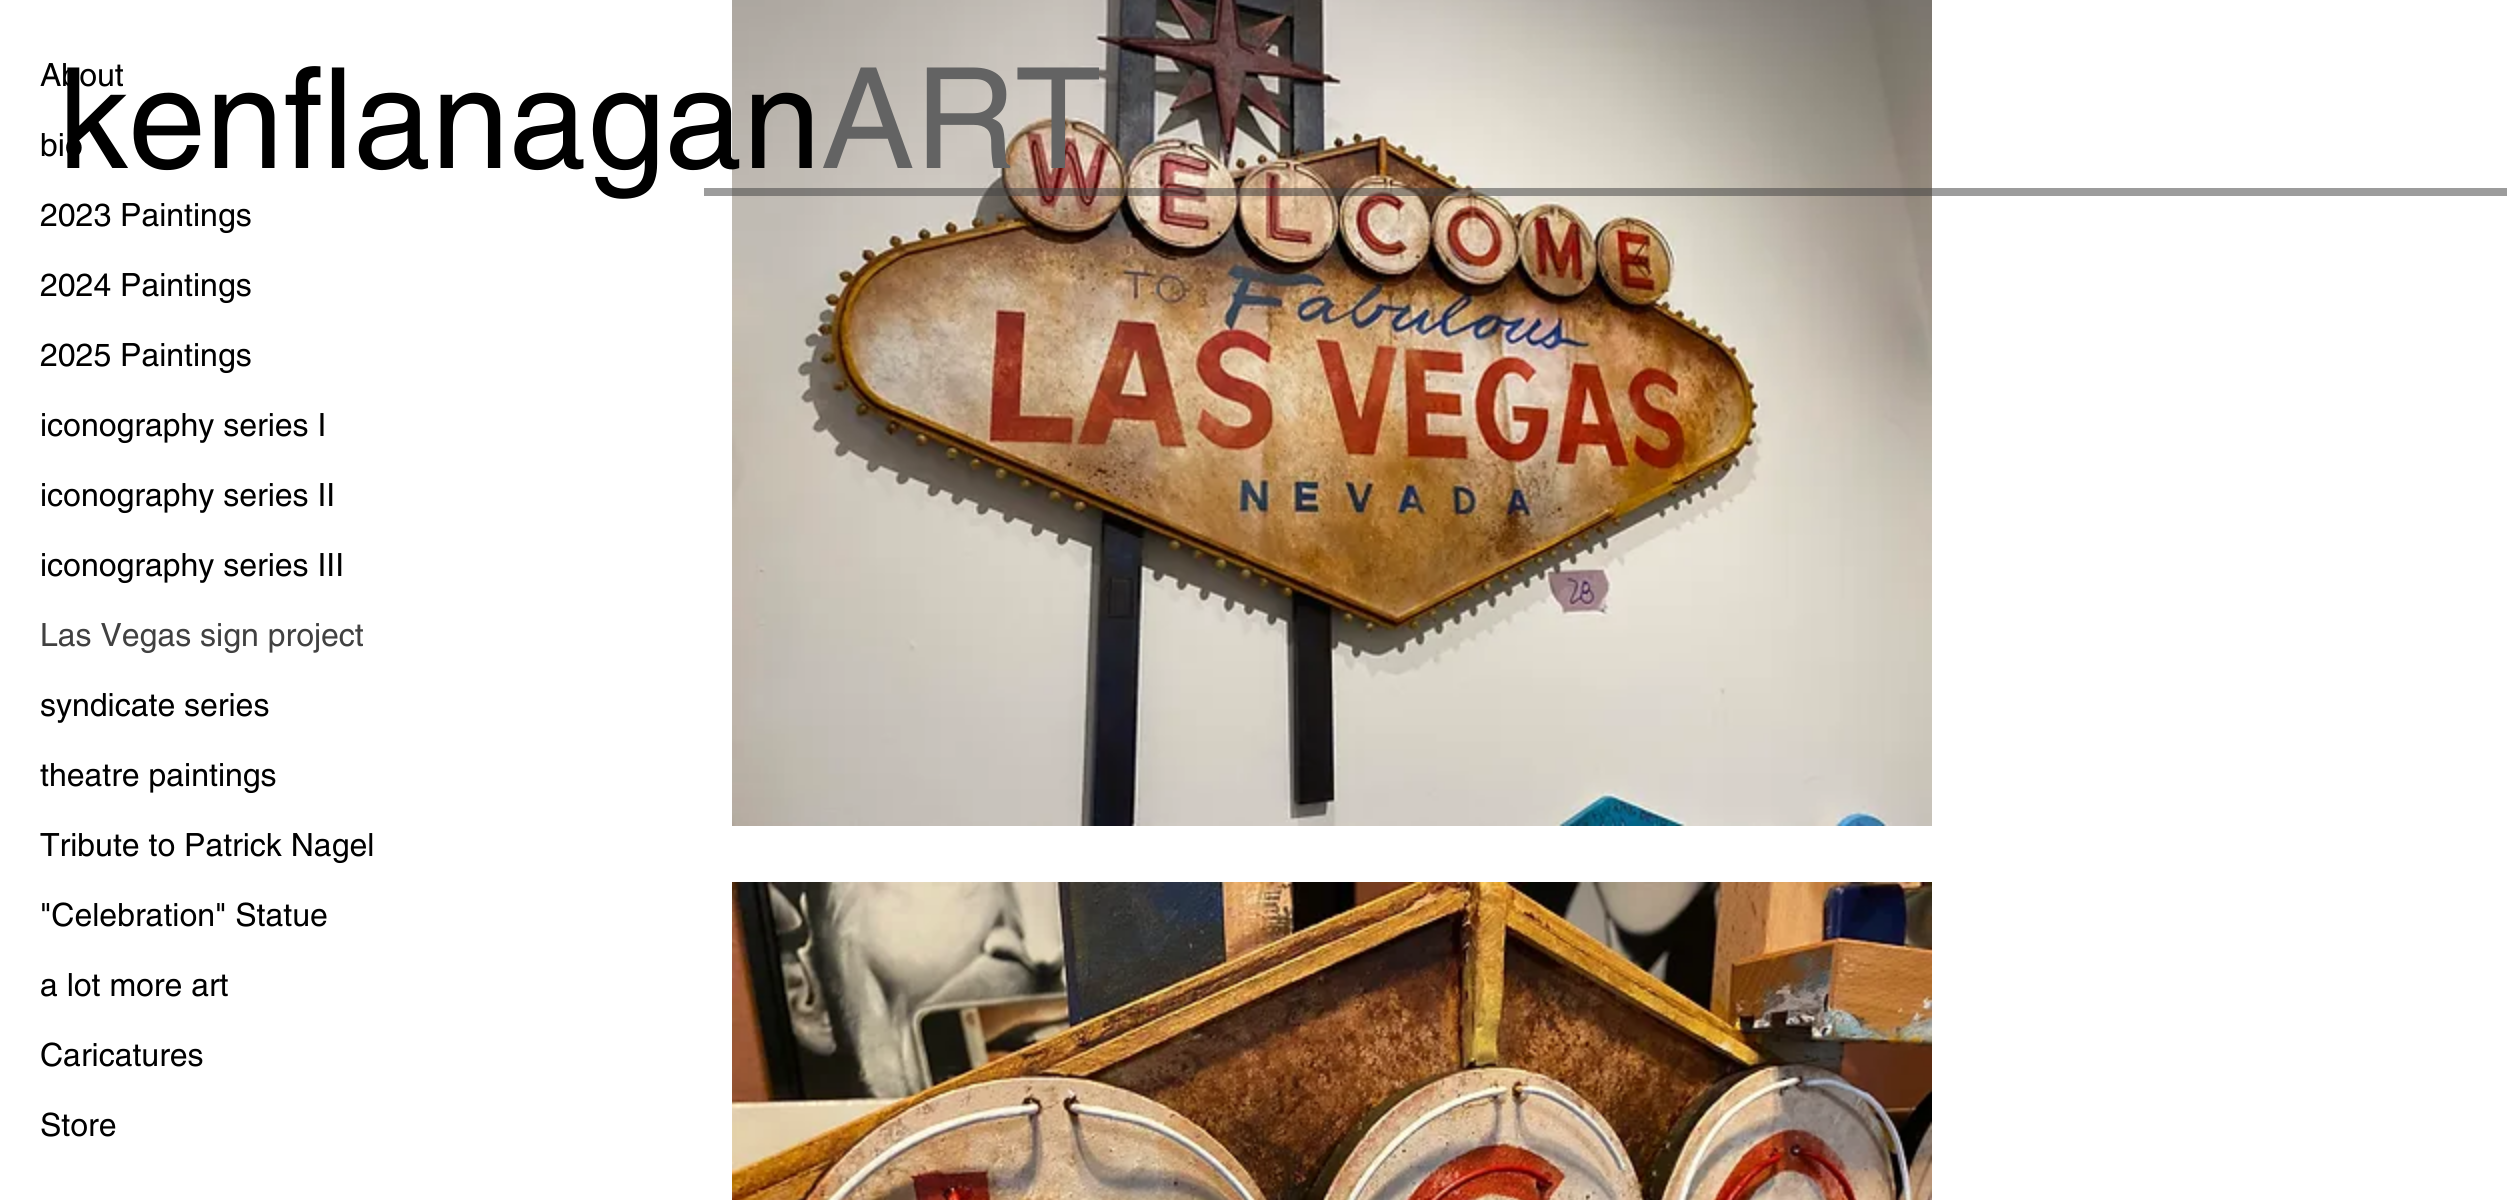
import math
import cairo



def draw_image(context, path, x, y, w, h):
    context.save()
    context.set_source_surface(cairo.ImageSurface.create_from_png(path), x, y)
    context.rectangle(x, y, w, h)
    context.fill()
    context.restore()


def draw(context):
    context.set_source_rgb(1, 1, 1)
    context.paint()
    draw_image(context, "images/1.png", 732, 0, 1200, 826)
    draw_image(context, "images/2.png", 732, 882, 1200, 318)
    context.set_source_rgba(66 / 255, 66 / 255, 66 / 255, 0.52)
    context.rectangle(704, 188, 1803, 8)
    context.fill()
    context.select_font_face("helvetica")
    context.set_font_size(32)
    context.set_source_rgb(0, 0, 0)
    context.move_to(40, 86)
    context.show_text("About")
    context.move_to(40, 156)
    context.show_text("bio")
    context.move_to(40, 226)
    context.show_text("2023 Paintings")
    context.move_to(40, 296)
    context.show_text("2024 Paintings")
    context.move_to(40, 366)
    context.show_text("2025 Paintings")
    context.move_to(40, 436)
    context.show_text("iconography series I")
    context.move_to(40, 506)
    context.show_text("iconography series II")
    context.move_to(40, 576)
    context.show_text("iconography series III")
    context.set_source_rgb(65 / 255, 65 / 255, 65 / 255)
    context.move_to(40, 646)
    context.show_text("Las Vegas sign project")
    context.set_source_rgb(0, 0, 0)
    context.move_to(40, 716)
    context.show_text("syndicate series")
    context.move_to(40, 786)
    context.show_text("theatre paintings")
    context.move_to(40, 856)
    context.show_text("Tribute to Patrick Nagel")
    context.move_to(40, 926)
    context.show_text("\"Celebration\" Statue")
    context.move_to(40, 996)
    context.show_text("a lot more art")
    context.move_to(40, 1066)
    context.show_text("Caricatures")
    context.move_to(40, 1136)
    context.show_text("Store")
    context.set_font_size(140)
    context.move_to(58, 168)
    context.show_text("kenflanagan")
    context.set_source_rgb(99 / 255, 99 / 255, 99 / 255)
    context.move_to(821, 168)
    context.show_text("ART")


surface = cairo.ImageSurface(cairo.Format.RGB24, 2507, 1200)
context = cairo.Context(surface)
options = cairo.FontOptions()
options.set_hint_metrics(cairo.HintMetrics.OFF)
options.set_hint_style(cairo.HintStyle.NONE)
context.set_font_options(options)
context.set_miter_limit(4)
draw(context)
surface.write_to_png("out.png")
